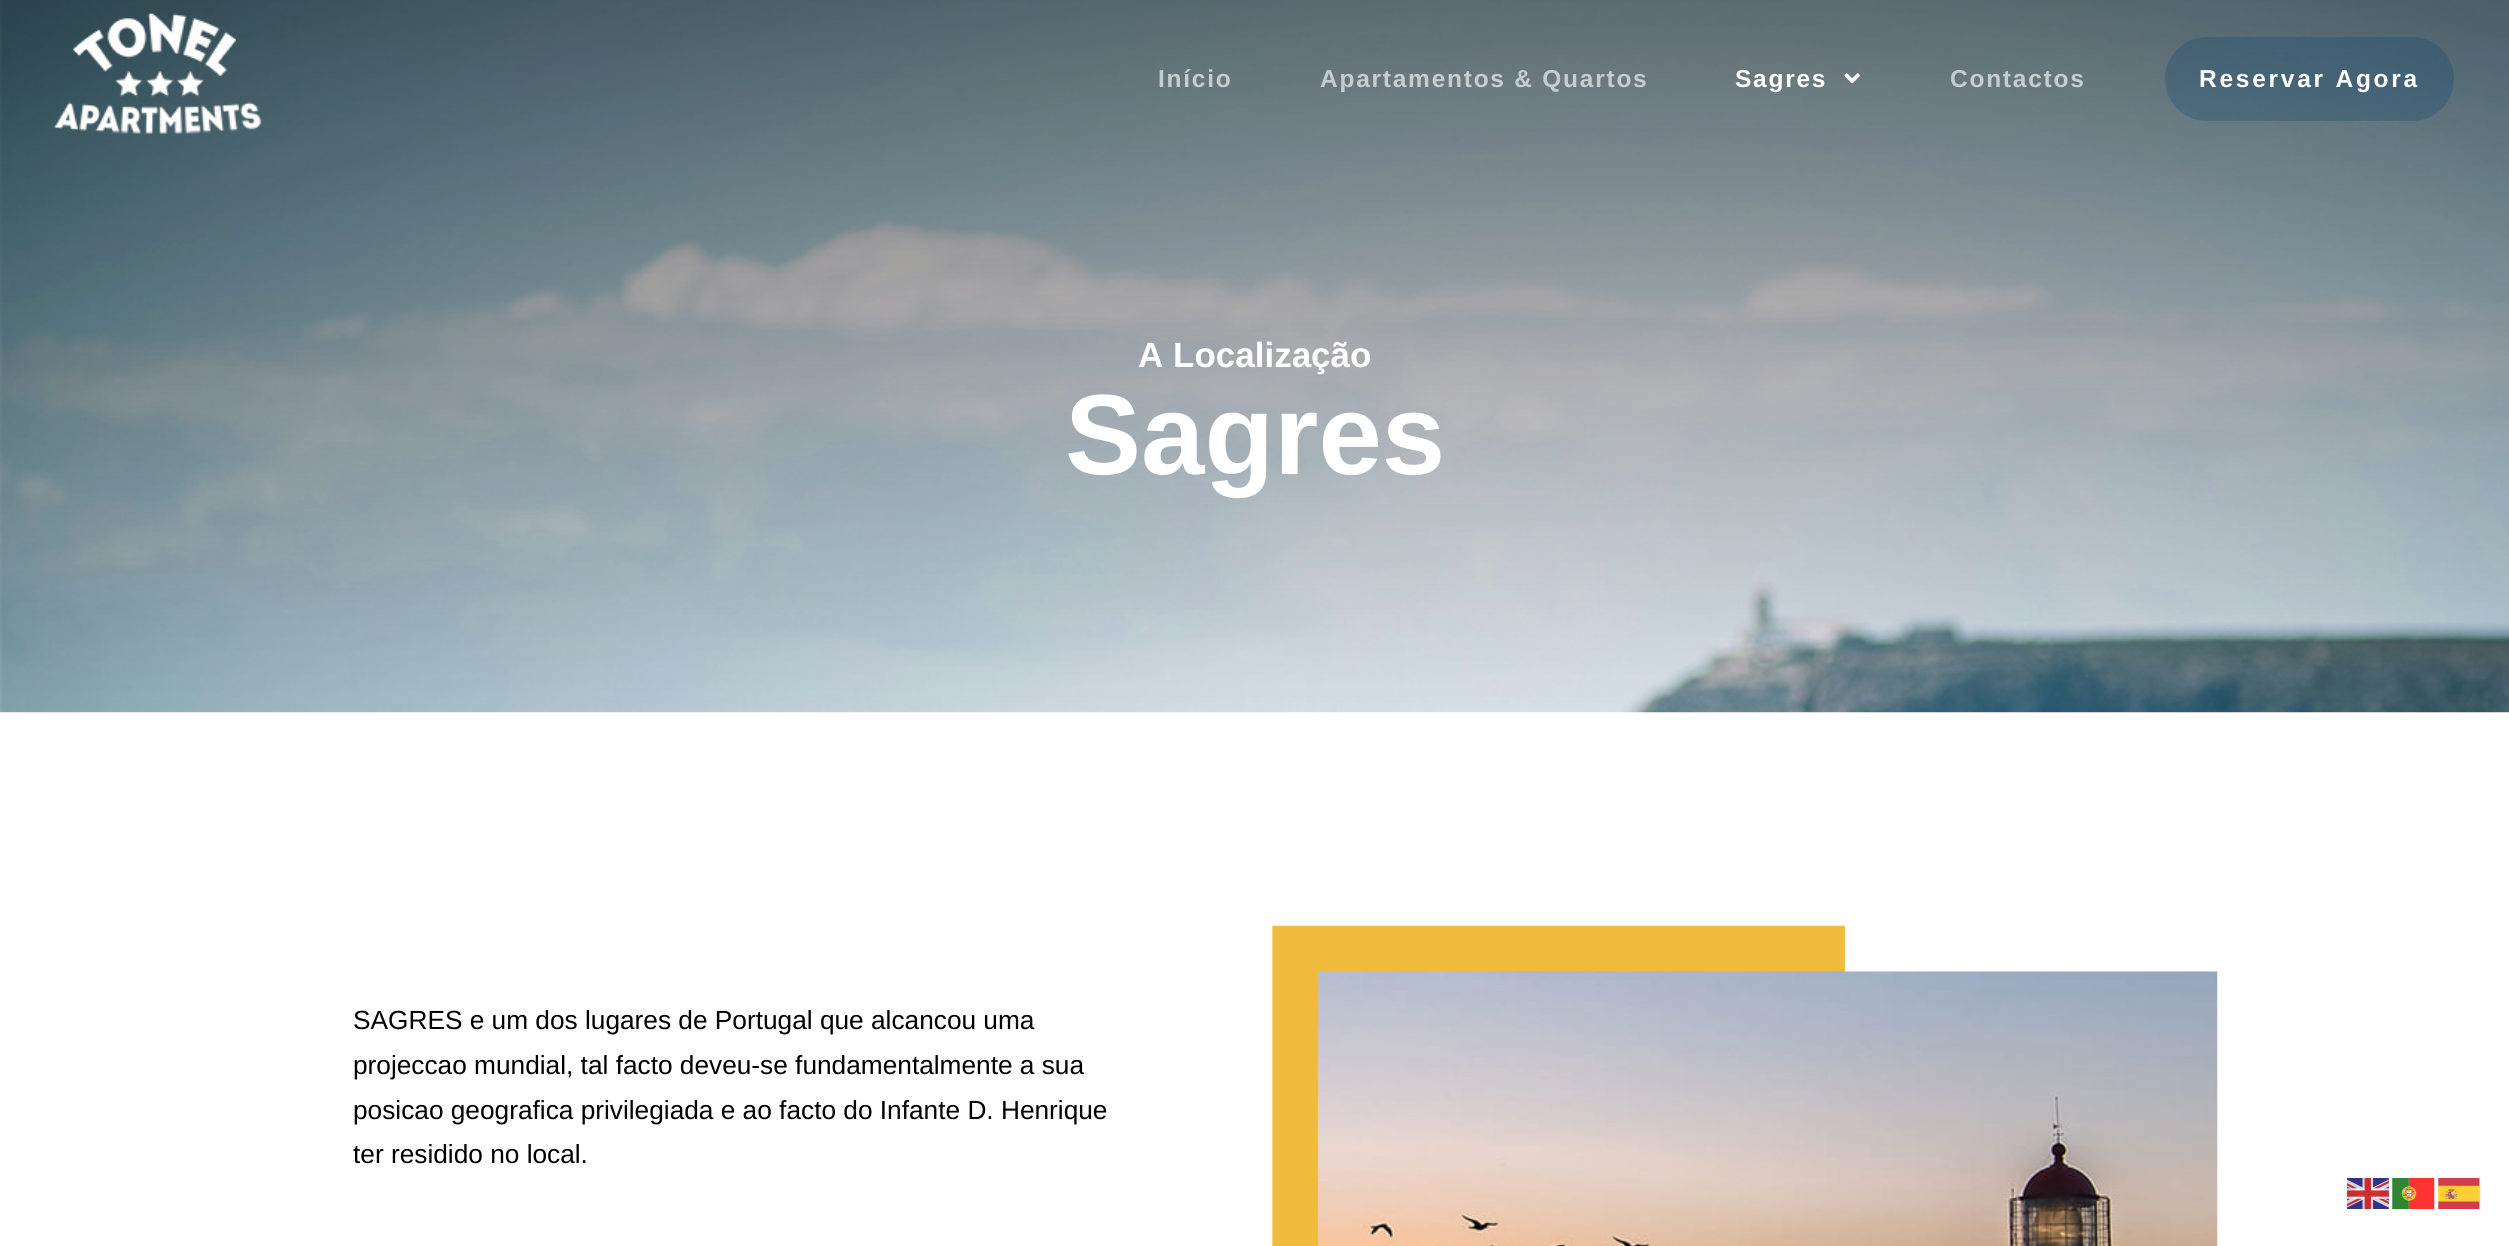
import math
import cairo



def draw_spaced(context, x, y, s, letter, word):
    context.move_to(x, y)
    for ch in s:
        context.show_text(ch)
        context.rel_move_to(letter + word * (ch == ' '), 0)


def rounded_rect(context, x, y, w, h, r):
    context.new_sub_path()
    for i, (u, v) in enumerate([(x + w - r, y + h - r), (x + r, y + h - r), (x + r, y + r), (x + w - r, y + r)]):
        context.arc(u, v, r, i * math.pi / 2, (i + 1) * math.pi / 2)
    context.close_path()


def draw_image(context, path, x, y, w, h):
    context.save()
    context.set_source_surface(cairo.ImageSurface.create_from_png(path), x, y)
    context.rectangle(x, y, w, h)
    context.fill()
    context.restore()


def draw(context):
    context.set_source_rgb(1, 1, 1)
    context.paint()
    draw_image(context, "images/3.png", 0, 0, 2509, 713)
    draw_image(context, "images/1.png", 53, 13, 209, 121)
    draw_image(context, "images/2.png", 1844, 73, 16, 11)
    context.set_source_rgba(26 / 255, 74 / 255, 116 / 255, 0.33)
    rounded_rect(context, 2165, 37, 289, 84, 42)
    context.fill()
    draw_image(context, "images/4.png", 1272, 925, 946, 321)
    draw_image(context, "images/5.png", 2347, 1178, 42, 31)
    draw_image(context, "images/6.png", 2392, 1178, 43, 31)
    draw_image(context, "images/7.png", 2438, 1178, 43, 31)
    context.select_font_face("Liberation Sans", cairo.FontSlant.NORMAL, cairo.FontWeight.BOLD)
    context.set_font_size(24.5)
    context.set_source_rgb(198 / 255, 204 / 255, 207 / 255)
    draw_spaced(context, 1158, 87, "Início", 1.75, 0)
    draw_spaced(context, 1320, 87, "Apartamentos & Quartos", 1.75, 0)
    context.set_source_rgb(1, 1, 1)
    draw_spaced(context, 1735, 87, "Sagres", 1.75, 0)
    context.set_source_rgb(198 / 255, 204 / 255, 207 / 255)
    draw_spaced(context, 1950, 87, "Contactos", 1.75, 0)
    context.set_source_rgb(1, 1, 1)
    draw_spaced(context, 2199, 87, "Reservar Agora", 2.75, 0)
    context.set_font_size(35)
    context.move_to(1138, 367)
    context.show_text("A Localização")
    context.set_font_size(114)
    context.move_to(1065, 474)
    context.show_text("Sagres")
    context.select_font_face("Liberation Sans")
    context.set_font_size(26.25)
    context.set_source_rgb(0, 0, 0)
    context.move_to(353, 1029)
    context.show_text("SAGRES e um dos lugares de Portugal que alcancou uma")
    context.move_to(353, 1074)
    context.show_text("projeccao mundial, tal facto deveu-se fundamentalmente a sua")
    context.move_to(353, 1119)
    context.show_text("posicao geografica privilegiada e ao facto do Infante D. Henrique")
    context.move_to(353, 1163)
    context.show_text("ter residido no local.")


surface = cairo.ImageSurface(cairo.Format.RGB24, 2509, 1246)
context = cairo.Context(surface)
options = cairo.FontOptions()
options.set_hint_metrics(cairo.HintMetrics.OFF)
options.set_hint_style(cairo.HintStyle.NONE)
context.set_font_options(options)
context.set_miter_limit(4)
draw(context)
surface.write_to_png("out.png")
